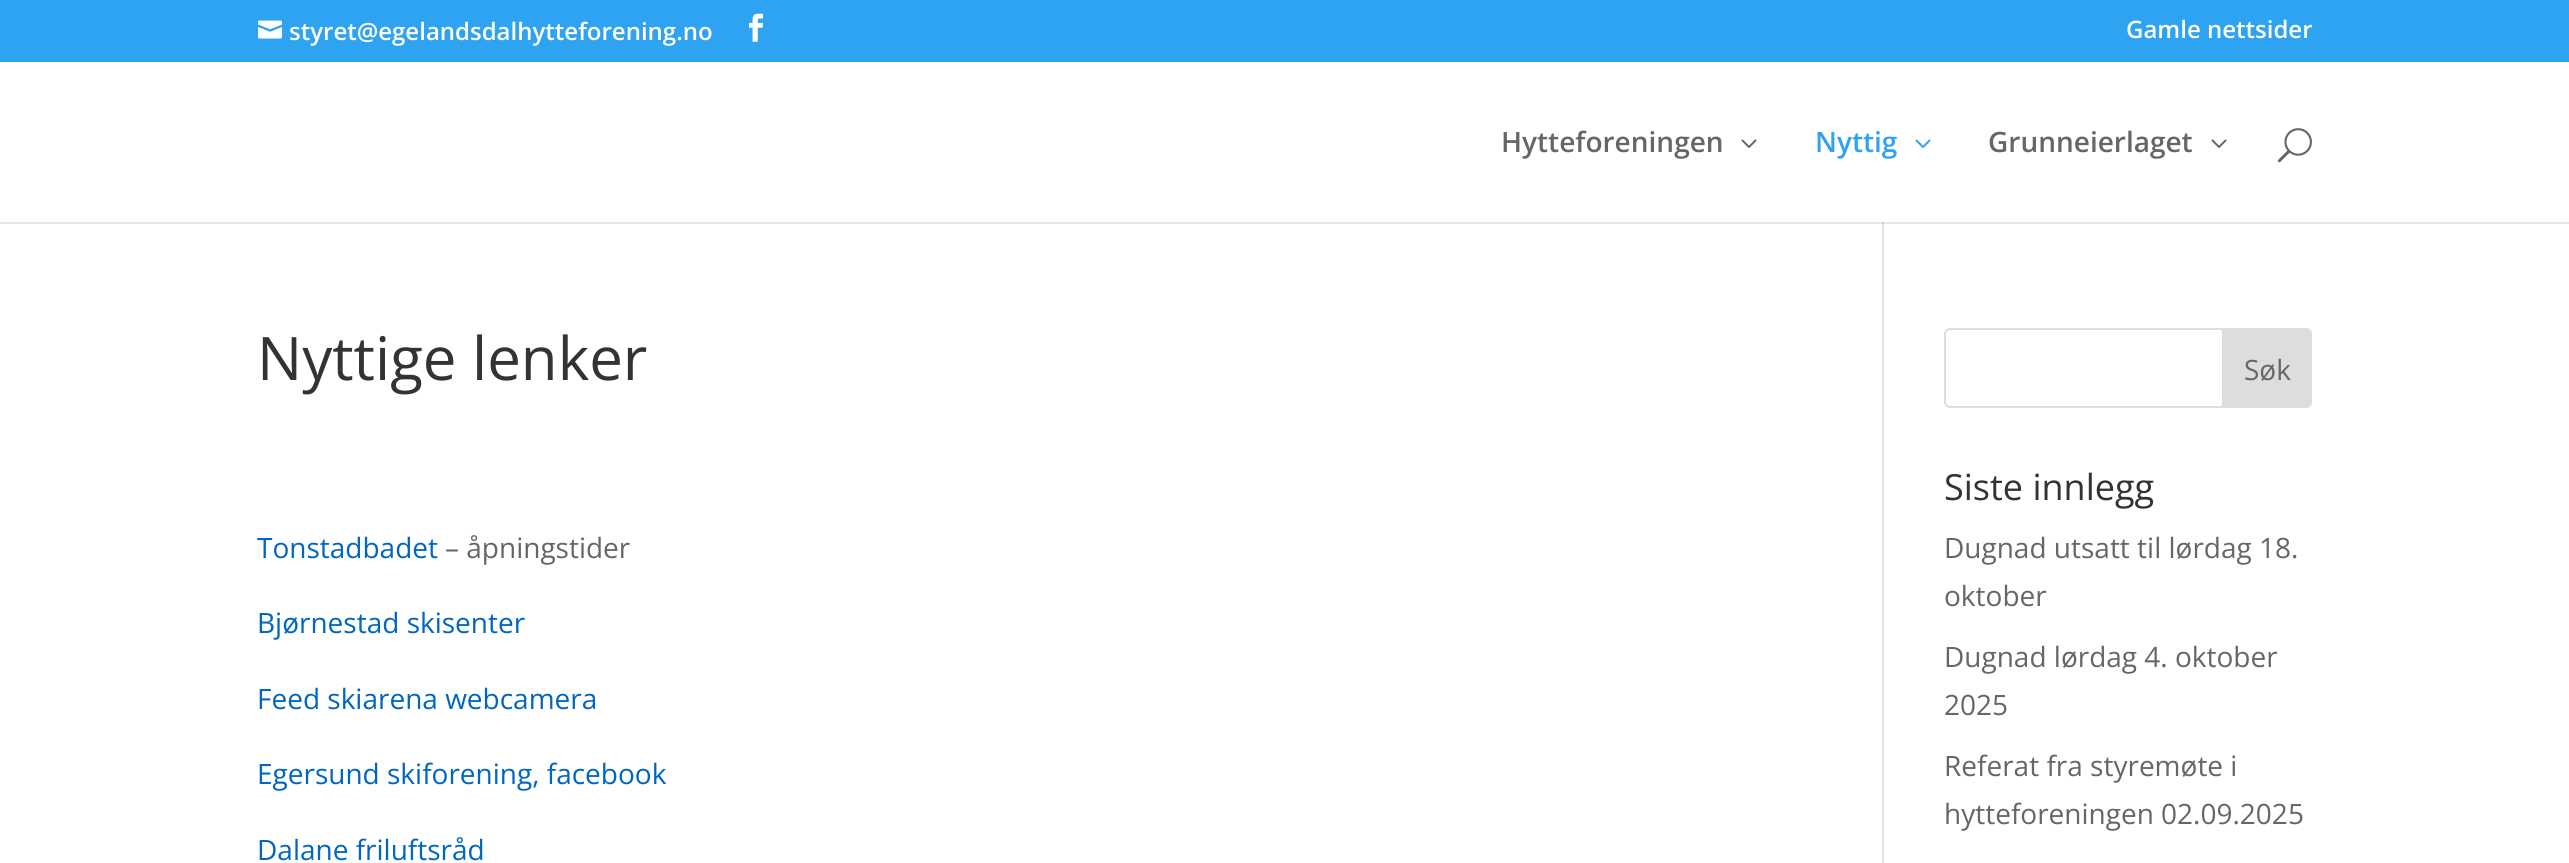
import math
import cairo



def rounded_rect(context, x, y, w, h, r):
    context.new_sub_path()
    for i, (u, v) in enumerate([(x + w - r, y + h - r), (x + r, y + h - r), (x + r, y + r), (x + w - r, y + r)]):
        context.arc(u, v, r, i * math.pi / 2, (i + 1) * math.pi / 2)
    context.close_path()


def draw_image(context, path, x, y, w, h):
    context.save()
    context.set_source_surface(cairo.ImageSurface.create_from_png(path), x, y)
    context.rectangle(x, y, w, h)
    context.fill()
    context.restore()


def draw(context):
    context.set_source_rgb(1, 1, 1)
    context.paint()
    context.set_source_rgb(46 / 255, 163 / 255, 242 / 255)
    context.rectangle(0, 0, 2569, 62)
    context.fill()
    draw_image(context, "images/1.png", 258, 20, 24, 19)
    draw_image(context, "images/2.png", 749, 13, 15, 29)
    context.set_source_rgb(226 / 255, 226 / 255, 226 / 255)
    context.rectangle(1882, 222, 2, 641)
    context.fill()
    context.set_source_rgba(0, 0, 0, 0.1)
    context.rectangle(0, 222, 2569, 2)
    context.fill()
    draw_image(context, "images/3.png", 1741, 139, 16, 9)
    draw_image(context, "images/4.png", 1915, 139, 16, 9)
    draw_image(context, "images/3.png", 2211, 139, 16, 9)
    draw_image(context, "images/5.png", 2277, 128, 35, 35)
    rounded_rect(context, 1945, 329, 366, 78, 5)
    context.set_source_rgb(221 / 255, 221 / 255, 221 / 255)
    context.stroke()
    context.new_path()
    context.move_to(2223, 329)
    context.line_to(2306, 329)
    context.curve_to(2309, 329, 2311, 331, 2311, 334)
    context.line_to(2311, 402)
    context.curve_to(2311, 405, 2309, 407, 2306, 407)
    context.line_to(2223, 407)
    context.close_path()
    context.fill_preserve()
    context.stroke()
    context.select_font_face("Open Sans SemiBold")
    context.set_font_size(24)
    context.set_source_rgb(1, 1, 1)
    context.move_to(289, 40)
    context.show_text("styret@egelandsdalhytteforening.no")
    context.move_to(2126, 38)
    context.show_text("Gamle nettsider")
    context.set_font_size(28)
    context.set_source_rgb(102 / 255, 102 / 255, 102 / 255)
    context.move_to(1501, 152)
    context.show_text("Hytteforeningen")
    context.set_source_rgb(46 / 255, 163 / 255, 242 / 255)
    context.move_to(1815, 152)
    context.show_text("Nyttig")
    context.set_source_rgb(102 / 255, 102 / 255, 102 / 255)
    context.move_to(1988, 152)
    context.show_text("Grunneierlaget")
    context.select_font_face("Open Sans")
    context.set_font_size(60)
    context.set_source_rgb(51 / 255, 51 / 255, 51 / 255)
    context.move_to(257, 380)
    context.show_text("Nyttige lenker")
    context.set_font_size(28)
    context.set_source_rgb(0, 102 / 255, 191 / 255)
    context.move_to(257, 558)
    context.show_text("Tonstadbadet")
    context.set_source_rgb(102 / 255, 102 / 255, 102 / 255)
    context.move_to(445, 558)
    context.show_text("– åpningstider")
    context.set_source_rgb(0, 102 / 255, 191 / 255)
    context.move_to(257, 633)
    context.show_text("Bjørnestad skisenter")
    context.move_to(257, 709)
    context.show_text("Feed skiarena webcamera")
    context.move_to(257, 784)
    context.show_text("Egersund skiforening, facebook")
    context.move_to(257, 860)
    context.show_text("Dalane friluftsråd")
    context.set_source_rgb(102 / 255, 102 / 255, 102 / 255)
    context.move_to(2244, 380)
    context.show_text("Søk")
    context.set_font_size(36)
    context.set_source_rgb(51 / 255, 51 / 255, 51 / 255)
    context.move_to(1944, 500)
    context.show_text("Siste innlegg")
    context.set_font_size(28)
    context.set_source_rgb(102 / 255, 102 / 255, 102 / 255)
    context.move_to(1944, 558)
    context.show_text("Dugnad utsatt til lørdag 18.")
    context.move_to(1944, 606)
    context.show_text("oktober")
    context.move_to(1944, 667)
    context.show_text("Dugnad lørdag 4. oktober")
    context.move_to(1944, 715)
    context.show_text("2025")
    context.move_to(1944, 776)
    context.show_text("Referat fra styremøte i")
    context.move_to(1944, 824)
    context.show_text("hytteforeningen 02.09.2025")


surface = cairo.ImageSurface(cairo.Format.RGB24, 2569, 863)
context = cairo.Context(surface)
options = cairo.FontOptions()
options.set_hint_metrics(cairo.HintMetrics.OFF)
options.set_hint_style(cairo.HintStyle.NONE)
context.set_font_options(options)
context.set_miter_limit(4)
draw(context)
surface.write_to_png("out.png")
